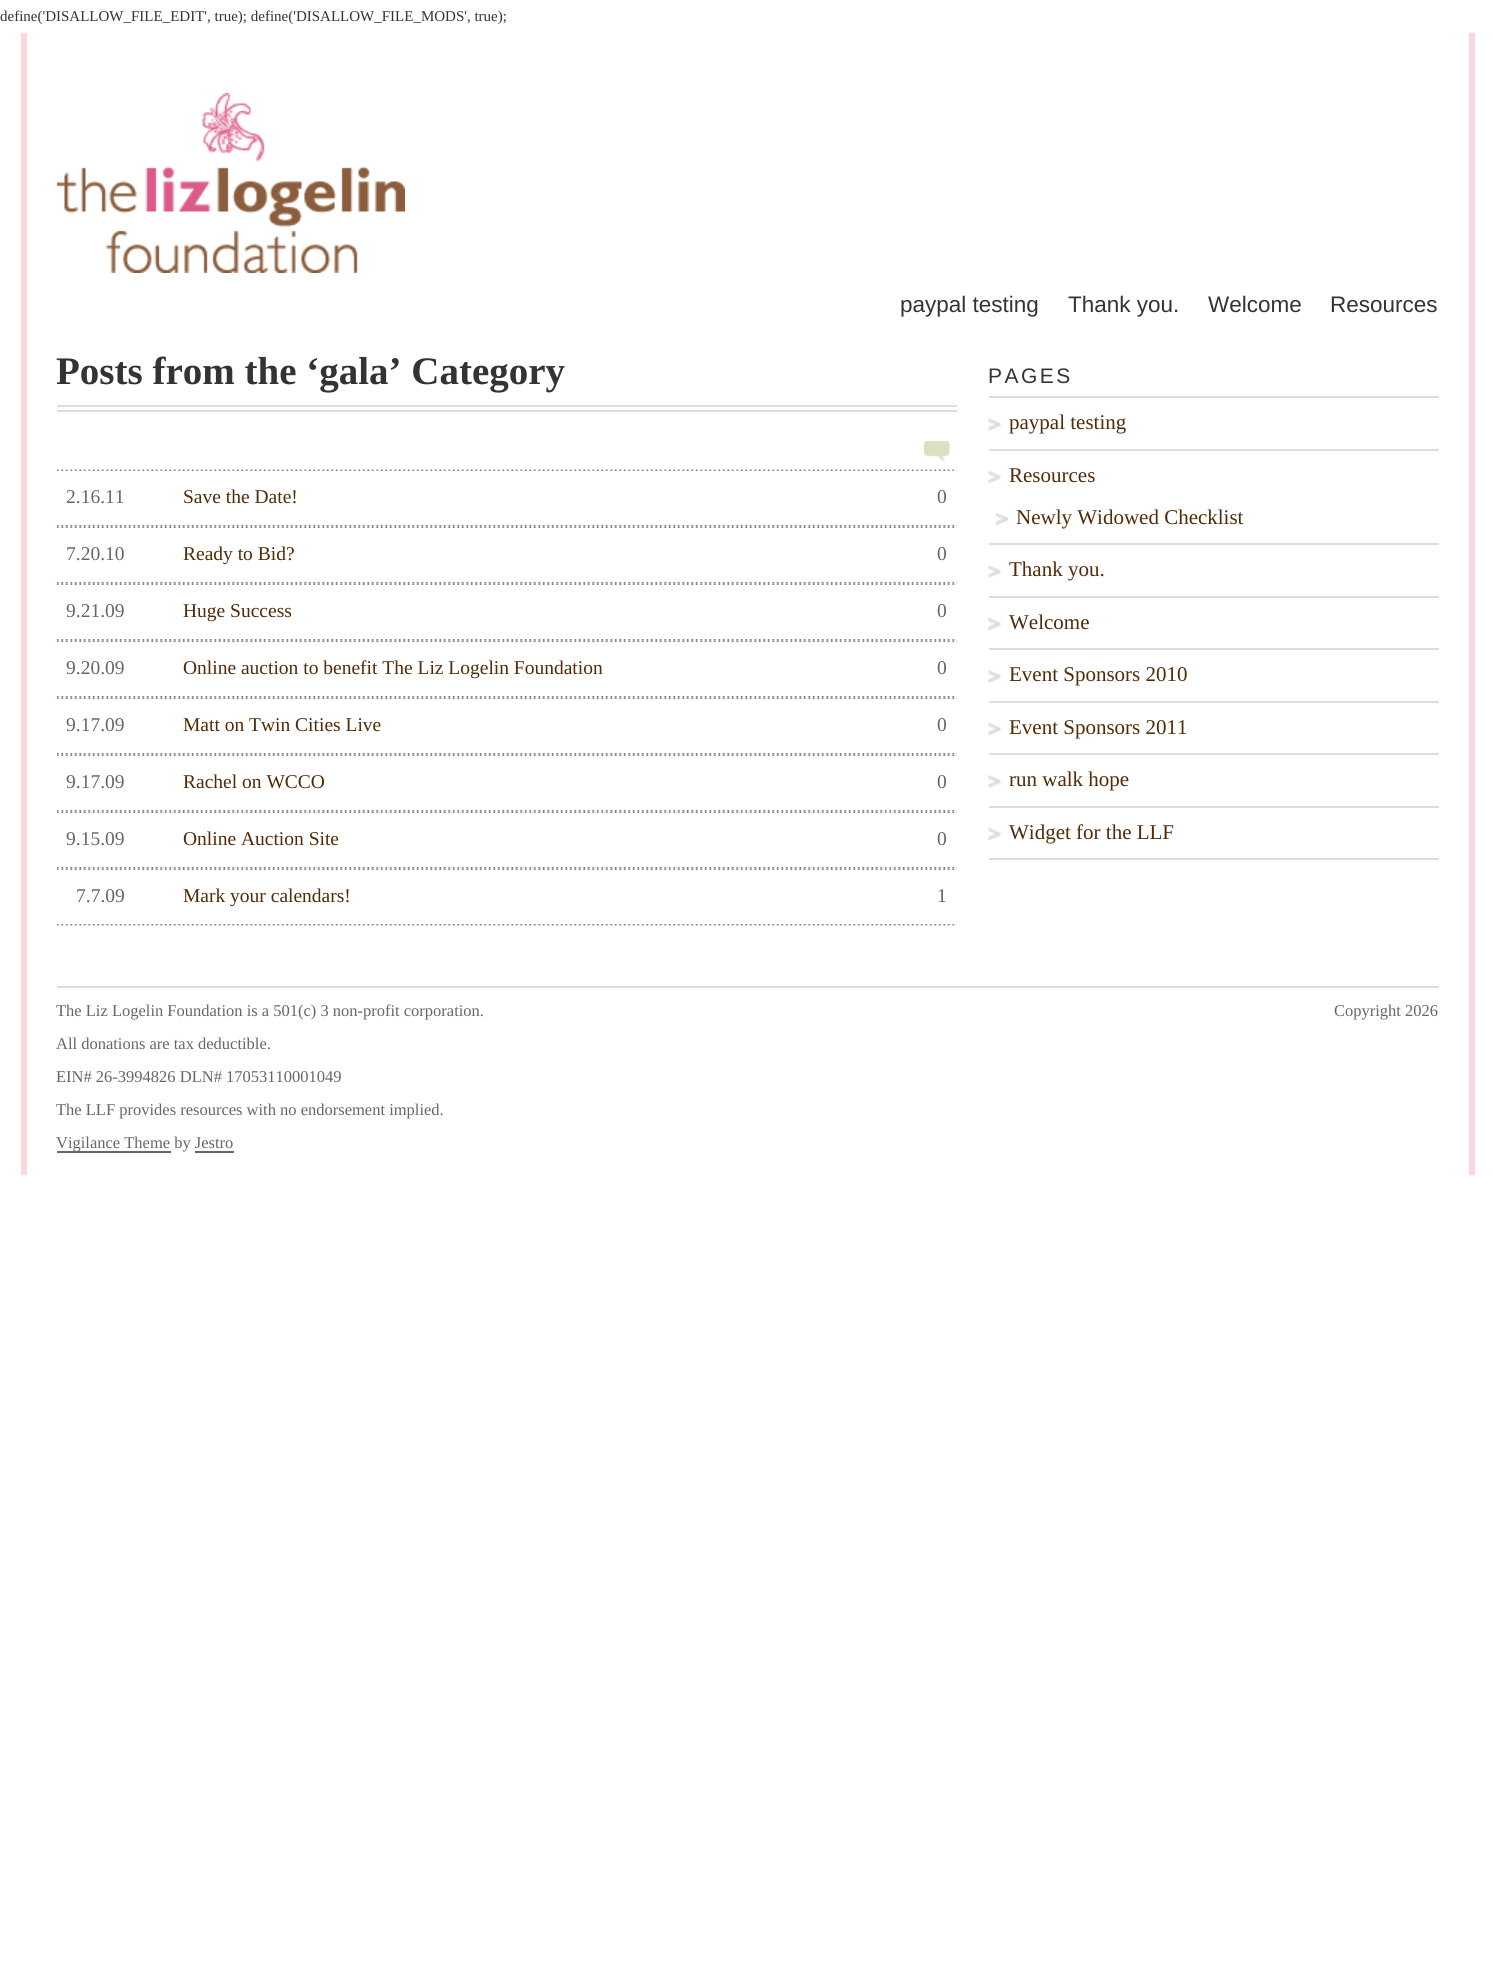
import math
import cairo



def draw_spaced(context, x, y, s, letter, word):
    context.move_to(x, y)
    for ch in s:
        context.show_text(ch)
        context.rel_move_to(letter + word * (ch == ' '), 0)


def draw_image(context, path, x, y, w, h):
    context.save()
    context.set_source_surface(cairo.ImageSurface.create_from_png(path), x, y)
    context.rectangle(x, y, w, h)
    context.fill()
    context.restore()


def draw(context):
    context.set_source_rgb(1, 1, 1)
    context.paint()
    context.set_source_rgb(251 / 255, 214 / 255, 221 / 255)
    context.rectangle(1469, 33, 6, 1142)
    context.fill()
    context.rectangle(21, 33, 6, 1142)
    context.fill()
    draw_image(context, "images/1.png", 57, 93, 348, 180)
    context.set_source_rgb(221 / 255, 221 / 255, 221 / 255)
    context.rectangle(57, 405, 900, 2)
    context.fill()
    context.rectangle(57, 410, 900, 2)
    context.fill()
    draw_image(context, "images/2.png", 924, 441, 26, 21)
    draw_image(context, "images/3.png", 57, 525, 900, 2)
    draw_image(context, "images/4.png", 57, 469, 900, 2)
    draw_image(context, "images/3.png", 57, 582, 900, 2)
    draw_image(context, "images/5.png", 57, 526, 900, 2)
    draw_image(context, "images/3.png", 57, 639, 900, 2)
    draw_image(context, "images/5.png", 57, 583, 900, 2)
    draw_image(context, "images/3.png", 57, 696, 900, 2)
    draw_image(context, "images/5.png", 57, 640, 900, 2)
    draw_image(context, "images/3.png", 57, 753, 900, 2)
    draw_image(context, "images/5.png", 57, 697, 900, 2)
    draw_image(context, "images/3.png", 57, 810, 900, 2)
    draw_image(context, "images/5.png", 57, 754, 900, 2)
    draw_image(context, "images/3.png", 57, 867, 900, 2)
    draw_image(context, "images/5.png", 57, 811, 900, 2)
    draw_image(context, "images/3.png", 57, 924, 900, 2)
    draw_image(context, "images/5.png", 57, 868, 900, 2)
    context.rectangle(989, 396, 450, 2)
    context.fill()
    context.rectangle(989, 449, 450, 2)
    context.fill()
    draw_image(context, "images/6.png", 988, 418, 13, 13)
    context.rectangle(989, 543, 450, 2)
    context.fill()
    draw_image(context, "images/7.png", 988, 471, 13, 12)
    draw_image(context, "images/8.png", 996, 513, 12, 12)
    context.rectangle(989, 596, 450, 2)
    context.fill()
    draw_image(context, "images/6.png", 988, 565, 13, 13)
    context.rectangle(989, 648, 450, 2)
    context.fill()
    draw_image(context, "images/7.png", 988, 618, 13, 12)
    context.rectangle(989, 701, 450, 2)
    context.fill()
    draw_image(context, "images/6.png", 988, 670, 13, 13)
    context.rectangle(989, 753, 450, 2)
    context.fill()
    draw_image(context, "images/7.png", 988, 723, 13, 12)
    context.rectangle(989, 806, 450, 2)
    context.fill()
    draw_image(context, "images/6.png", 988, 775, 13, 13)
    context.rectangle(989, 858, 450, 2)
    context.fill()
    draw_image(context, "images/7.png", 988, 828, 13, 12)
    context.rectangle(57, 986, 1382, 2)
    context.fill()
    context.set_source_rgb(102 / 255, 102 / 255, 102 / 255)
    context.rectangle(57, 1151, 114, 2)
    context.fill()
    context.rectangle(195, 1151, 39, 2)
    context.fill()
    context.select_font_face("Liberation Serif")
    context.set_font_size(15)
    context.set_source_rgb(51 / 255, 51 / 255, 51 / 255)
    context.move_to(0, 21)
    context.show_text("define('DISALLOW_FILE_EDIT', true); define('DISALLOW_FILE_MODS', true);")
    context.select_font_face("Liberation Sans")
    context.set_font_size(22.5)
    context.move_to(900, 312)
    context.show_text("paypal testing")
    context.move_to(1068, 312)
    context.show_text("Thank you.")
    context.move_to(1208, 312)
    context.show_text("Welcome")
    context.move_to(1330, 312)
    context.show_text("Resources")
    context.select_font_face("Liberation Serif", cairo.FontSlant.NORMAL, cairo.FontWeight.BOLD)
    context.set_font_size(39)
    context.move_to(56, 384)
    context.show_text("Posts from the ‘gala’ Category")
    context.select_font_face("Liberation Serif")
    context.set_font_size(19.5)
    context.set_source_rgb(102 / 255, 102 / 255, 102 / 255)
    context.move_to(66, 503)
    context.show_text("2.16.11")
    context.set_source_rgb(82 / 255, 43 / 255, 6 / 255)
    context.move_to(183, 503)
    context.show_text("Save the Date!")
    context.set_source_rgb(102 / 255, 102 / 255, 102 / 255)
    context.move_to(937, 503)
    context.show_text("0")
    context.move_to(66, 560)
    context.show_text("7.20.10")
    context.set_source_rgb(82 / 255, 43 / 255, 6 / 255)
    context.move_to(183, 560)
    context.show_text("Ready to Bid?")
    context.set_source_rgb(102 / 255, 102 / 255, 102 / 255)
    context.move_to(937, 560)
    context.show_text("0")
    context.move_to(66, 617)
    context.show_text("9.21.09")
    context.set_source_rgb(82 / 255, 43 / 255, 6 / 255)
    context.move_to(183, 617)
    context.show_text("Huge Success")
    context.set_source_rgb(102 / 255, 102 / 255, 102 / 255)
    context.move_to(937, 617)
    context.show_text("0")
    context.move_to(66, 674)
    context.show_text("9.20.09")
    context.set_source_rgb(82 / 255, 43 / 255, 6 / 255)
    context.move_to(183, 674)
    context.show_text("Online auction to benefit The Liz Logelin Foundation")
    context.set_source_rgb(102 / 255, 102 / 255, 102 / 255)
    context.move_to(937, 674)
    context.show_text("0")
    context.move_to(66, 731)
    context.show_text("9.17.09")
    context.set_source_rgb(82 / 255, 43 / 255, 6 / 255)
    context.move_to(183, 731)
    context.show_text("Matt on Twin Cities Live")
    context.set_source_rgb(102 / 255, 102 / 255, 102 / 255)
    context.move_to(937, 731)
    context.show_text("0")
    context.move_to(66, 788)
    context.show_text("9.17.09")
    context.set_source_rgb(82 / 255, 43 / 255, 6 / 255)
    context.move_to(183, 788)
    context.show_text("Rachel on WCCO")
    context.set_source_rgb(102 / 255, 102 / 255, 102 / 255)
    context.move_to(937, 788)
    context.show_text("0")
    context.move_to(66, 845)
    context.show_text("9.15.09")
    context.set_source_rgb(82 / 255, 43 / 255, 6 / 255)
    context.move_to(183, 845)
    context.show_text("Online Auction Site")
    context.set_source_rgb(102 / 255, 102 / 255, 102 / 255)
    context.move_to(937, 845)
    context.show_text("0")
    context.move_to(76, 902)
    context.show_text("7.7.09")
    context.set_source_rgb(82 / 255, 43 / 255, 6 / 255)
    context.move_to(183, 902)
    context.show_text("Mark your calendars!")
    context.set_source_rgb(102 / 255, 102 / 255, 102 / 255)
    context.move_to(937, 902)
    context.show_text("1")
    context.select_font_face("Liberation Sans")
    context.set_font_size(21)
    context.set_source_rgb(51 / 255, 51 / 255, 51 / 255)
    draw_spaced(context, 988, 383, "PAGES", 2.5, 0)
    context.select_font_face("Liberation Serif")
    context.set_source_rgb(82 / 255, 43 / 255, 6 / 255)
    context.move_to(1009, 429)
    context.show_text("paypal testing")
    context.move_to(1009, 482)
    context.show_text("Resources")
    context.move_to(1016, 524)
    context.show_text("Newly Widowed Checklist")
    context.move_to(1009, 576)
    context.show_text("Thank you.")
    context.move_to(1009, 629)
    context.show_text("Welcome")
    context.move_to(1009, 681)
    context.show_text("Event Sponsors 2010")
    context.move_to(1009, 734)
    context.show_text("Event Sponsors 2011")
    context.move_to(1009, 786)
    context.show_text("run walk hope")
    context.move_to(1009, 839)
    context.show_text("Widget for the LLF")
    context.set_font_size(16.5)
    context.set_source_rgb(102 / 255, 102 / 255, 102 / 255)
    context.move_to(56, 1016)
    context.show_text("The Liz Logelin Foundation is a 501(c) 3 non-profit corporation.")
    context.move_to(56, 1049)
    context.show_text("All donations are tax deductible.")
    context.move_to(56, 1082)
    context.show_text("EIN# 26-3994826 DLN# 17053110001049")
    context.move_to(56, 1115)
    context.show_text("The LLF provides resources with no endorsement implied.")
    context.move_to(1334, 1016)
    context.show_text("Copyright 2026")
    context.move_to(56, 1148)
    context.show_text("Vigilance Theme by Jestro")


surface = cairo.ImageSurface(cairo.Format.RGB24, 1493, 1973)
context = cairo.Context(surface)
options = cairo.FontOptions()
options.set_hint_metrics(cairo.HintMetrics.OFF)
options.set_hint_style(cairo.HintStyle.NONE)
context.set_font_options(options)
context.set_miter_limit(4)
draw(context)
surface.write_to_png("out.png")
